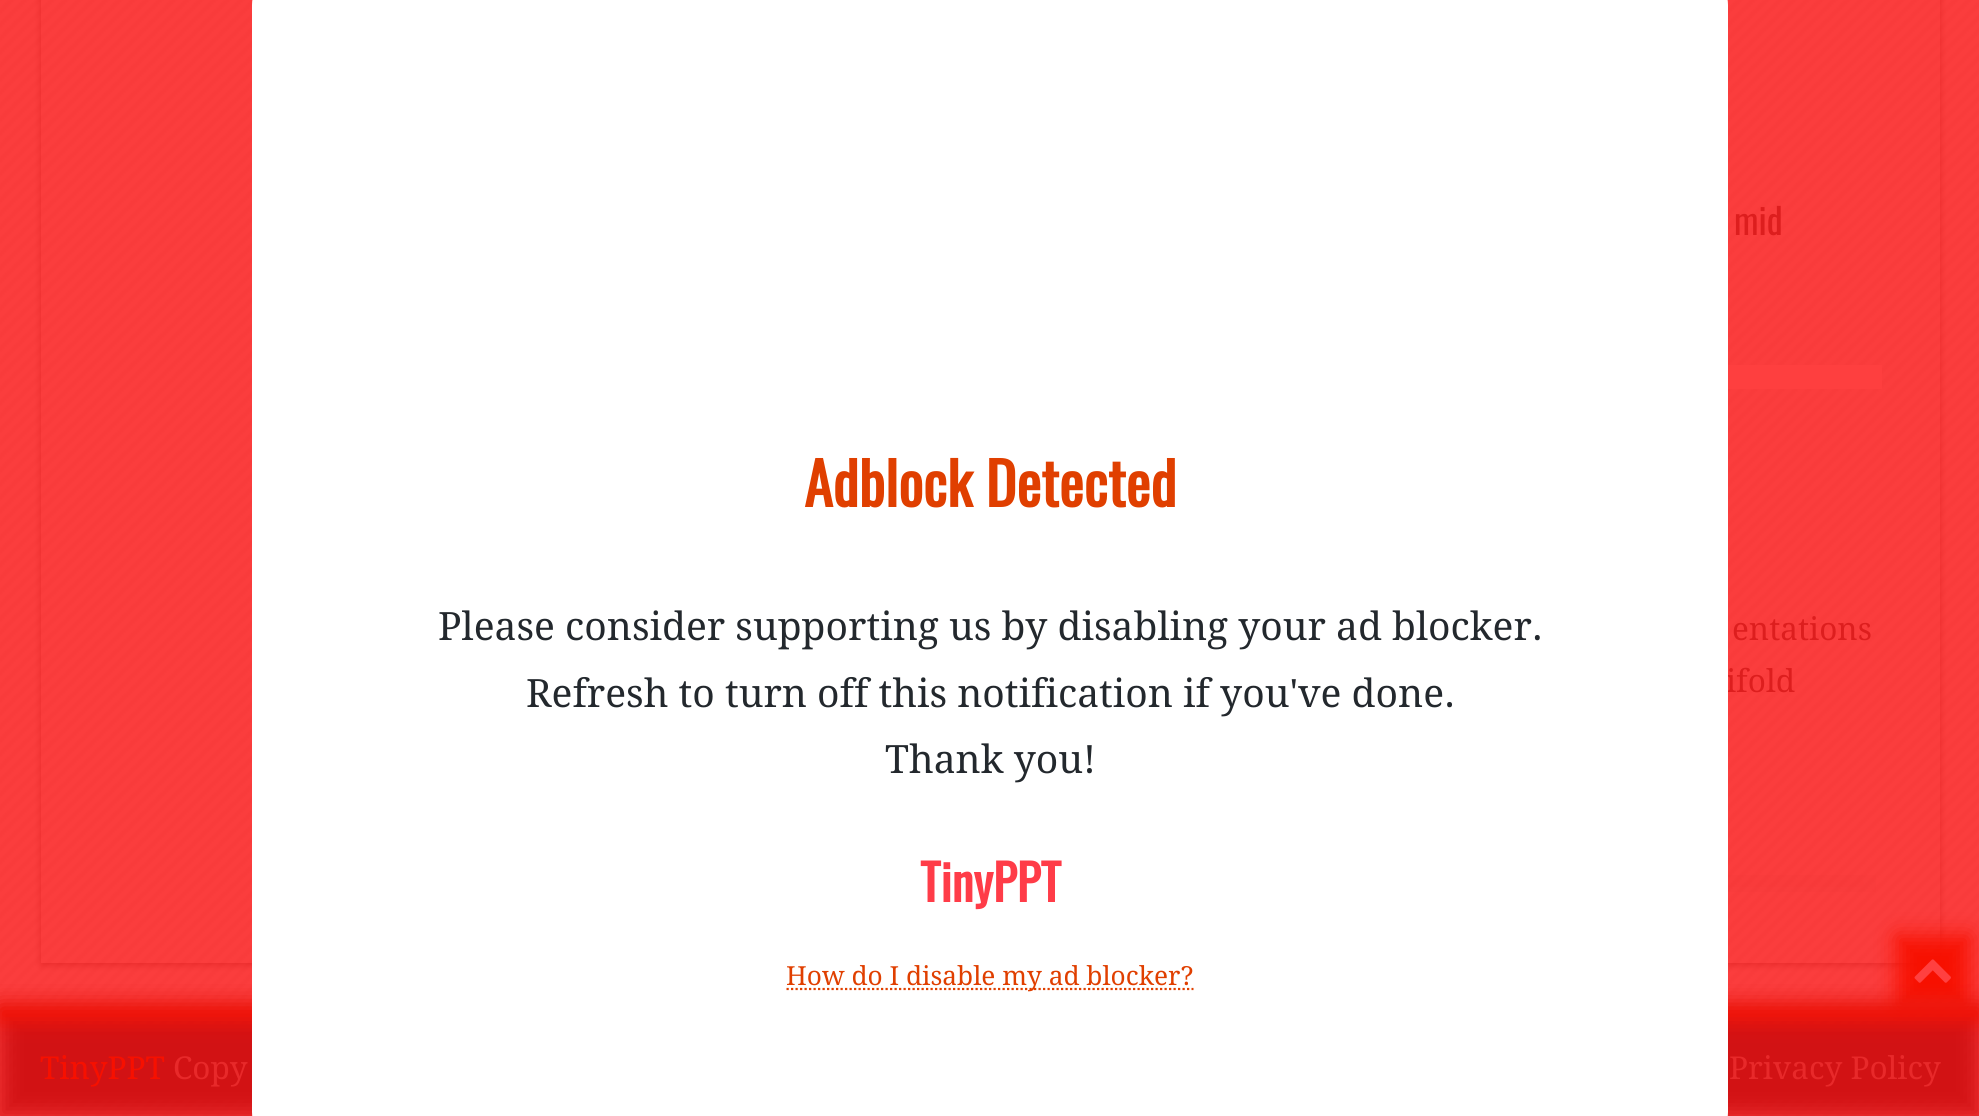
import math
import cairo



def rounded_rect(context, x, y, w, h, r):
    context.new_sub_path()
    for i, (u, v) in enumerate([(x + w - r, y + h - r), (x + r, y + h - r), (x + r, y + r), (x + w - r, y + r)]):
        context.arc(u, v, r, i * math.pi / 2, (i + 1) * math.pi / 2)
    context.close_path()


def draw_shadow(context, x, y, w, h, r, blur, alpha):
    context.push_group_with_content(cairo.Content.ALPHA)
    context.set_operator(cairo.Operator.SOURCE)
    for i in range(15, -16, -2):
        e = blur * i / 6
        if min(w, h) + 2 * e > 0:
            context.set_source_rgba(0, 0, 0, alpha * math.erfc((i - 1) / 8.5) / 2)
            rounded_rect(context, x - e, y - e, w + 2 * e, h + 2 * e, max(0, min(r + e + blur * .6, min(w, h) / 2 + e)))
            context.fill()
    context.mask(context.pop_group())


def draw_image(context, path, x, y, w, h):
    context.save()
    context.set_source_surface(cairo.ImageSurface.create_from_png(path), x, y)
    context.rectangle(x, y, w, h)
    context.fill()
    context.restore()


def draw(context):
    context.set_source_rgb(251 / 255, 61 / 255, 61 / 255)
    context.paint()
    draw_image(context, "images/1.png", 0, 0, 1979, 1116)
    context.save()
    context.set_fill_rule(cairo.FillRule.EVEN_ODD)
    context.new_path()
    context.move_to(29, 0)
    context.line_to(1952, 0)
    context.line_to(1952, 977)
    context.line_to(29, 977)
    context.close_path()
    context.move_to(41, -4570)
    context.line_to(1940, -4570)
    context.line_to(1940, 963)
    context.line_to(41, 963)
    context.close_path()
    context.clip()
    context.set_source_rgb(191 / 255, 0, 0)
    draw_shadow(context, 41, -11, 1899, 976, 0, 3.5, 0.3)
    context.restore()
    context.set_source_rgb(254 / 255, 63 / 255, 63 / 255)
    context.rectangle(1728, 365, 154, 24)
    context.fill()
    draw_image(context, "images/2.png", 1728, 875, 148, 17)
    context.set_source_rgb(247 / 255, 16 / 255, 0)
    draw_shadow(context, 1897, 936, 72, 72, 0, 11, 1)
    context.set_source_rgb(210 / 255, 18 / 255, 20 / 255)
    draw_shadow(context, 0, 1008, 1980, 108, 0, 11, 1)
    context.set_source_rgb(247 / 255, 16 / 255, 0)
    draw_shadow(context, 0, 1008, 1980, 11, 0, 11, 1)
    draw_image(context, "images/3.png", 1914, 959, 37, 24)
    context.select_font_face("Oswald")
    context.set_font_size(36)
    context.set_source_rgb(221 / 255, 30 / 255, 30 / 255)
    context.move_to(1734, 235)
    context.show_text("mid")
    context.select_font_face("Droid Serif")
    context.set_font_size(31.5)
    context.move_to(1732, 640)
    context.show_text("entations")
    context.move_to(1726, 692)
    context.show_text("ifold")
    context.set_source_rgb(1, 1, 1)
    rounded_rect(context, 252, -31, 1476, 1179, 36)
    context.fill()
    context.new_path()
    context.move_to(786.5, 989)
    context.line_to(1193.5, 989)
    context.set_source_rgb(224 / 255, 63 / 255, 0)
    context.set_line_width(2.2)
    context.set_dash([2.25, 2.25])
    context.stroke()
    context.set_font_size(26.25)
    context.move_to(786, 985)
    context.show_text("How do I disable my ad blocker?")
    context.select_font_face("Oswald", cairo.FontSlant.NORMAL, cairo.FontWeight.BOLD)
    context.set_font_size(49.5)
    context.set_source_rgb(1, 60 / 255, 72 / 255)
    context.move_to(920, 902)
    context.show_text("TinyPPT")
    context.select_font_face("Droid Serif")
    context.set_font_size(39)
    context.set_source_rgb(35 / 255, 40 / 255, 45 / 255)
    context.move_to(885, 773)
    context.show_text("Thank you!")
    context.move_to(526, 707)
    context.show_text("Refresh to turn off this notification if you've done.")
    context.move_to(438, 640)
    context.show_text("Please consider supporting us by disabling your ad blocker.")
    context.select_font_face("Oswald", cairo.FontSlant.NORMAL, cairo.FontWeight.BOLD)
    context.set_font_size(58.5)
    context.set_source_rgb(224 / 255, 63 / 255, 0)
    context.move_to(804, 507)
    context.show_text("Adblock Detected")
    context.select_font_face("Droid Serif")
    context.set_font_size(31.5)
    context.set_source_rgb(247 / 255, 16 / 255, 0)
    context.move_to(40, 1079)
    context.show_text("TinyPPT")
    context.set_source_rgb(232 / 255, 41 / 255, 42 / 255)
    context.move_to(173, 1079)
    context.show_text("Copy")
    context.move_to(1729, 1079)
    context.show_text("Privacy Policy")


surface = cairo.ImageSurface(cairo.Format.RGB24, 1979, 1116)
context = cairo.Context(surface)
options = cairo.FontOptions()
options.set_hint_metrics(cairo.HintMetrics.OFF)
options.set_hint_style(cairo.HintStyle.NONE)
context.set_font_options(options)
context.set_miter_limit(4)
draw(context)
surface.write_to_png("out.png")
